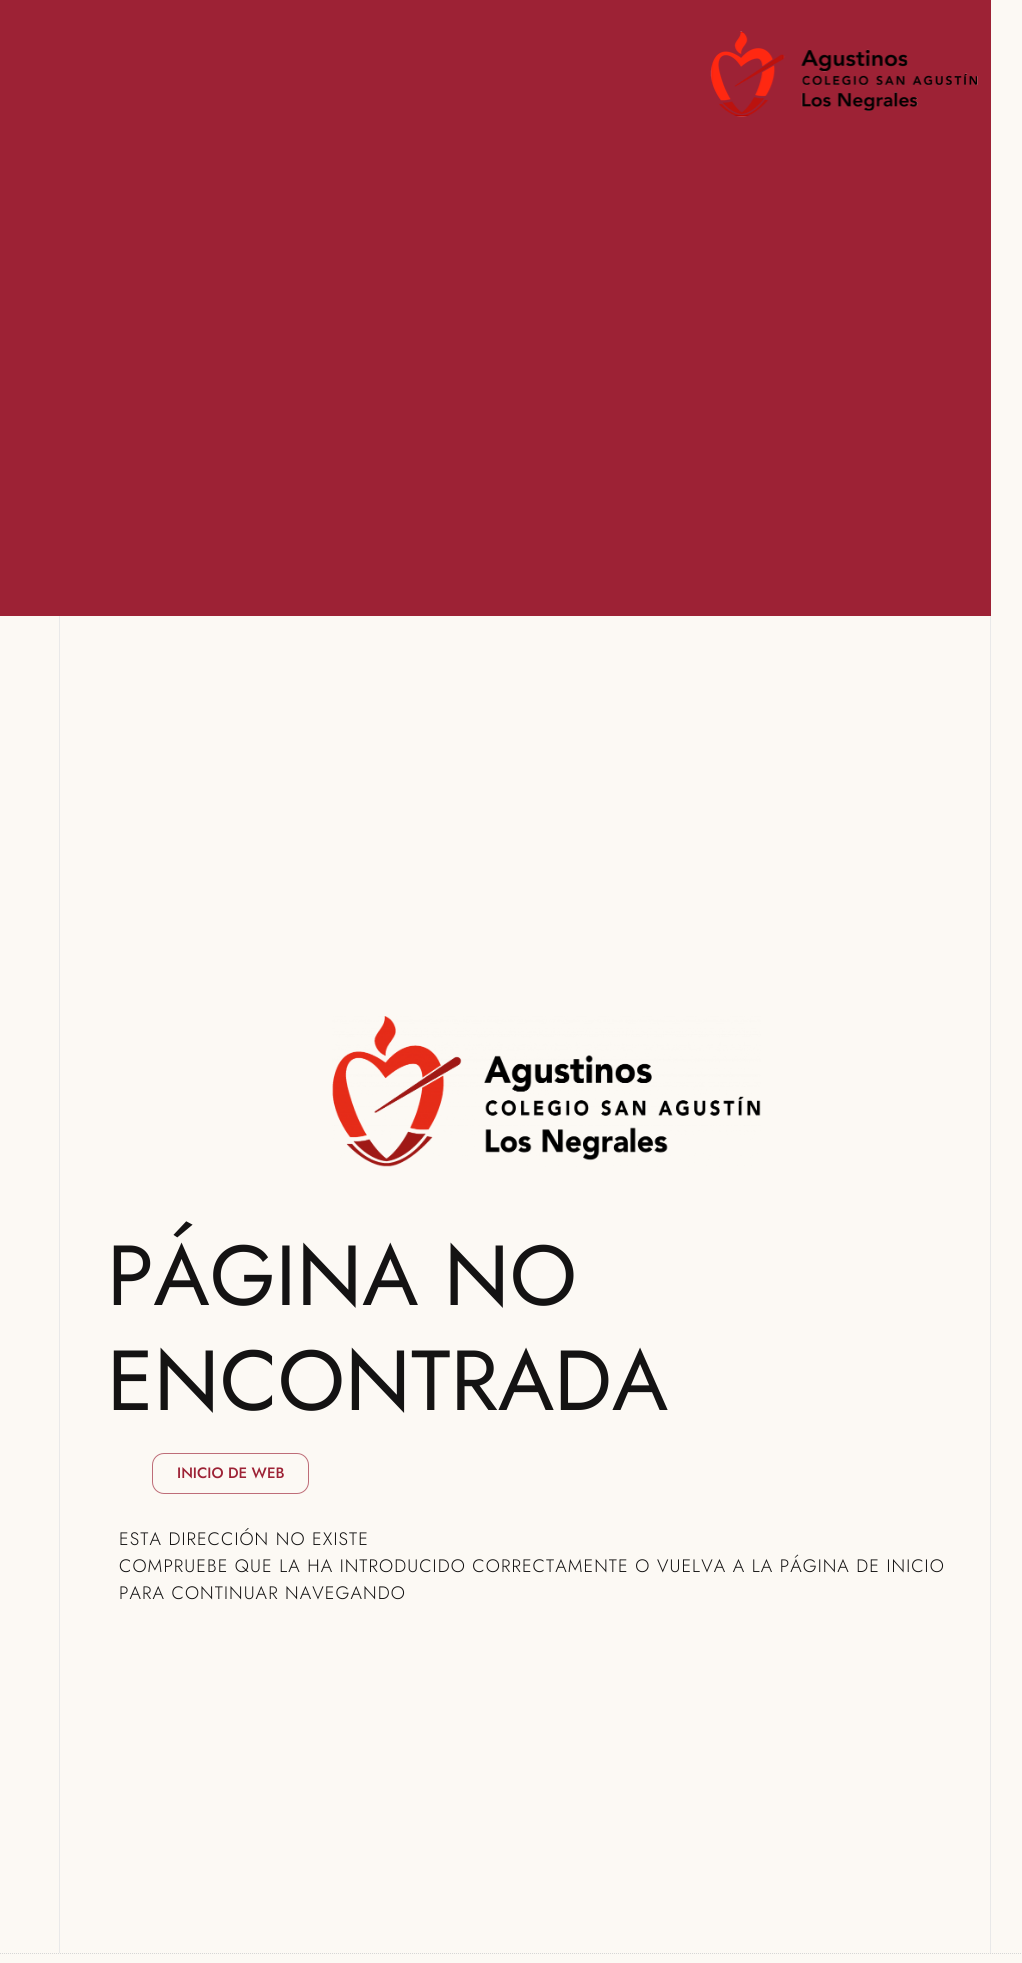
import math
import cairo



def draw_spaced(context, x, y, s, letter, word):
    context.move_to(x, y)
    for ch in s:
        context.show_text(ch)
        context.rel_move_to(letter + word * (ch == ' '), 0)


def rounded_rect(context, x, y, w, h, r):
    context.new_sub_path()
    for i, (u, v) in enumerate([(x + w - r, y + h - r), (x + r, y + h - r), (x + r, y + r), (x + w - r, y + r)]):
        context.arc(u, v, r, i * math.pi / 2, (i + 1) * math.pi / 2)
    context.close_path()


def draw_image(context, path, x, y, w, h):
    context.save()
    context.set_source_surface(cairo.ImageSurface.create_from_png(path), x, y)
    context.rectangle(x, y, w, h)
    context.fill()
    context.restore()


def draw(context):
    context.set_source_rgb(252 / 255, 249 / 255, 244 / 255)
    context.paint()
    context.set_source_rgb(157 / 255, 34 / 255, 53 / 255)
    context.rectangle(0, 0, 991, 616)
    context.fill()
    draw_image(context, "images/1.png", 710, 31, 268, 86)
    context.set_source_rgb(233 / 255, 233 / 255, 233 / 255)
    context.rectangle(990, 616, 1, 1337)
    context.fill()
    context.rectangle(59, 616, 1, 1337)
    context.fill()
    draw_image(context, "images/2.png", 332, 1016, 429, 151)
    rounded_rect(context, 152.5, 1453.5, 156, 40, 11.5)
    context.set_source_rgb(190 / 255, 109 / 255, 120 / 255)
    context.set_line_width(1)
    context.stroke()
    context.new_path()
    context.move_to(0, 1953.5)
    context.line_to(1022, 1953.5)
    context.set_source_rgb(214 / 255, 214 / 255, 214 / 255)
    context.set_dash([1, 1])
    context.stroke()
    context.select_font_face("Jost")
    context.set_font_size(85)
    context.set_source_rgb(20 / 255, 19 / 255, 19 / 255)
    context.move_to(107, 1305)
    context.show_text("PÁGINA NO")
    context.move_to(107, 1410)
    context.show_text("ENCONTRADA")
    context.select_font_face("Jost Medium")
    context.set_font_size(15)
    context.set_source_rgb(157 / 255, 34 / 255, 53 / 255)
    context.move_to(177, 1478)
    context.show_text("INICIO DE WEB")
    context.select_font_face("Jost Light")
    context.set_font_size(18)
    context.set_source_rgb(20 / 255, 19 / 255, 19 / 255)
    draw_spaced(context, 119, 1545, "ESTA DIRECCIÓN NO EXISTE", 1.08, 0)
    draw_spaced(context, 119, 1572, "COMPRUEBE QUE LA HA INTRODUCIDO CORRECTAMENTE O VUELVA A LA PÁGINA DE INICIO", 1.08, 0)
    draw_spaced(context, 119, 1599, "PARA CONTINUAR NAVEGANDO", 1.08, 0)


surface = cairo.ImageSurface(cairo.Format.RGB24, 1022, 1963)
context = cairo.Context(surface)
options = cairo.FontOptions()
options.set_hint_metrics(cairo.HintMetrics.OFF)
options.set_hint_style(cairo.HintStyle.NONE)
context.set_font_options(options)
context.set_miter_limit(4)
draw(context)
surface.write_to_png("out.png")
